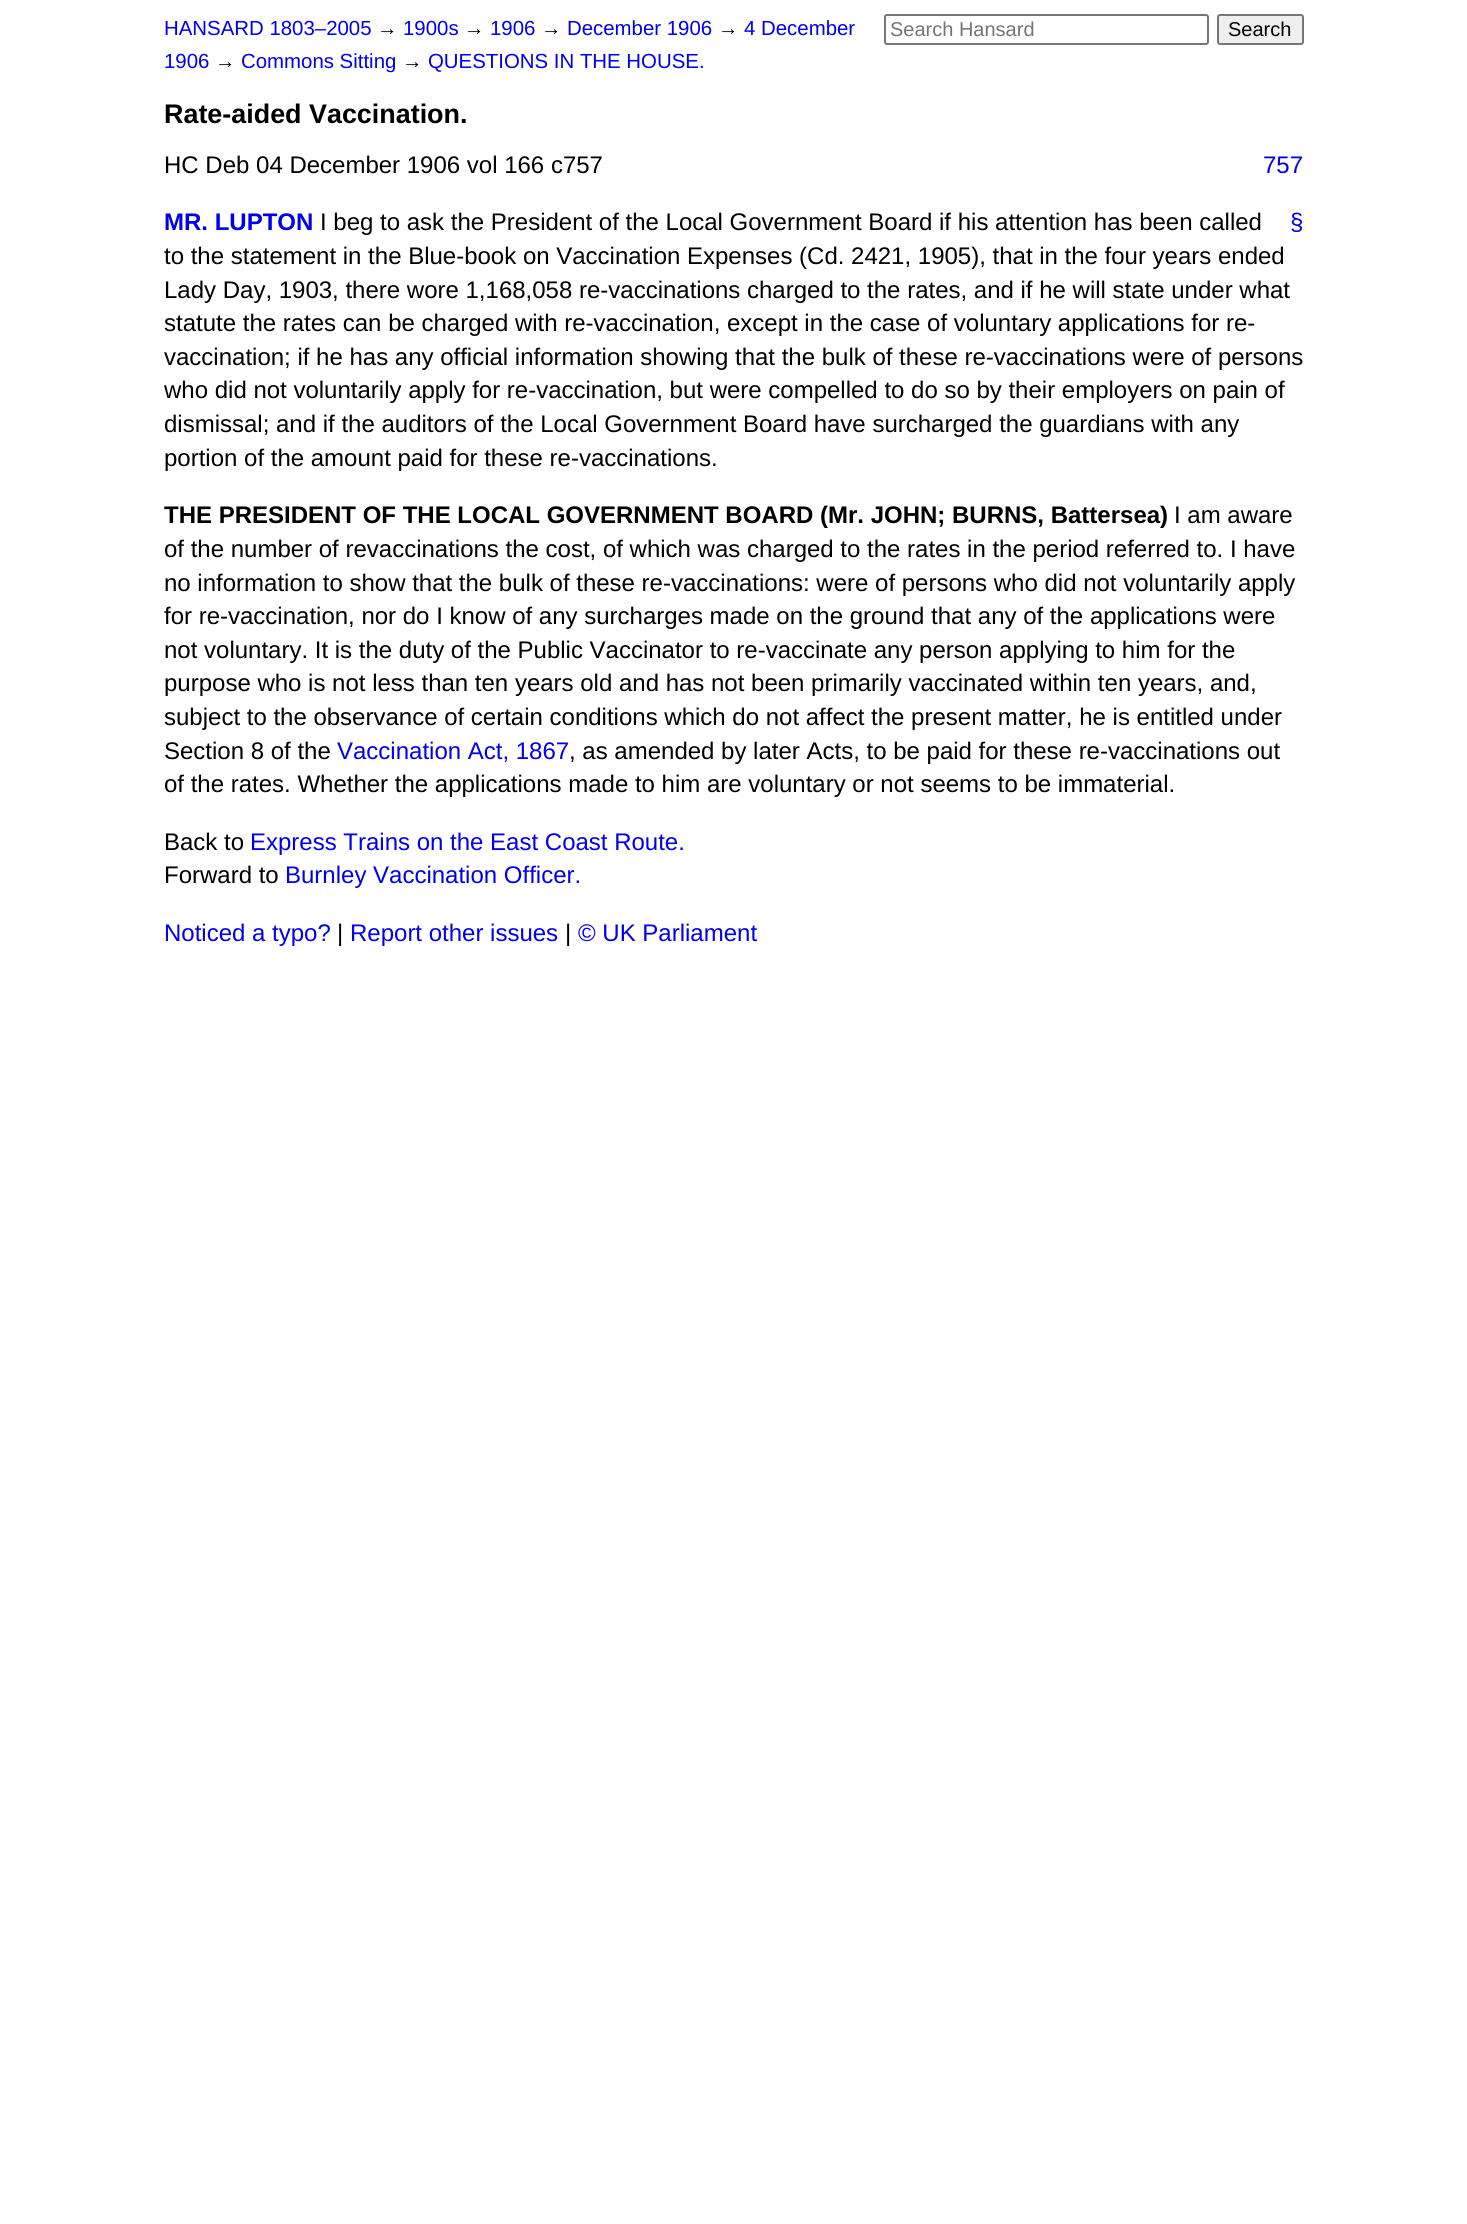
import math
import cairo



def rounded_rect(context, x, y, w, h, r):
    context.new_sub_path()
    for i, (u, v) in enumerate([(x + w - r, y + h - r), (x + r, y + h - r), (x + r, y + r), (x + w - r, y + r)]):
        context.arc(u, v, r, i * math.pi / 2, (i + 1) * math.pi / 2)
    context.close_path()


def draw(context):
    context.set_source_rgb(1, 1, 1)
    context.paint()
    rounded_rect(context, 885, 15, 323, 29, 2)
    context.set_source_rgb(118 / 255, 118 / 255, 118 / 255)
    context.stroke()
    context.set_source_rgb(239 / 255, 239 / 255, 239 / 255)
    rounded_rect(context, 1218, 15, 85, 29, 2)
    context.fill_preserve()
    context.set_source_rgb(118 / 255, 118 / 255, 118 / 255)
    context.stroke()
    context.select_font_face("Liberation Sans")
    context.set_font_size(20.4)
    context.set_source_rgb(0, 0, 238 / 255)
    context.move_to(164, 35)
    context.show_text("HANSARD 1803–2005")
    context.set_source_rgb(0, 0, 0)
    context.move_to(377, 35)
    context.show_text("→")
    context.set_source_rgb(0, 0, 238 / 255)
    context.move_to(403, 35)
    context.show_text("1900s")
    context.set_source_rgb(0, 0, 0)
    context.move_to(464, 35)
    context.show_text("→")
    context.set_source_rgb(0, 0, 238 / 255)
    context.move_to(490, 35)
    context.show_text("1906")
    context.set_source_rgb(0, 0, 0)
    context.move_to(541, 35)
    context.show_text("→")
    context.set_source_rgb(0, 0, 238 / 255)
    context.move_to(567, 35)
    context.show_text("December 1906")
    context.set_source_rgb(0, 0, 0)
    context.move_to(718, 35)
    context.show_text("→")
    context.set_source_rgb(0, 0, 238 / 255)
    context.move_to(744, 35)
    context.show_text("4 December")
    context.move_to(164, 68)
    context.show_text("1906")
    context.set_source_rgb(0, 0, 0)
    context.move_to(215, 68)
    context.show_text("→")
    context.set_source_rgb(0, 0, 238 / 255)
    context.move_to(241, 68)
    context.show_text("Commons Sitting")
    context.set_source_rgb(0, 0, 0)
    context.move_to(402, 68)
    context.show_text("→")
    context.set_source_rgb(0, 0, 238 / 255)
    context.move_to(428, 68)
    context.show_text("QUESTIONS IN THE HOUSE.")
    context.set_font_size(20)
    context.set_source_rgb(117 / 255, 117 / 255, 117 / 255)
    context.move_to(890, 36)
    context.show_text("Search Hansard")
    context.set_source_rgb(0, 0, 0)
    context.move_to(1228, 36)
    context.show_text("Search")
    context.select_font_face("Liberation Sans", cairo.FontSlant.NORMAL, cairo.FontWeight.BOLD)
    context.set_font_size(26.9)
    context.move_to(164, 123)
    context.show_text("Rate-aided Vaccination.")
    context.select_font_face("Liberation Sans")
    context.set_font_size(24)
    context.move_to(164, 173)
    context.show_text("HC Deb 04 December 1906 vol 166 c757")
    context.set_source_rgb(0, 0, 238 / 255)
    context.move_to(1263, 173)
    context.show_text("757")
    context.select_font_face("Liberation Sans", cairo.FontSlant.NORMAL, cairo.FontWeight.BOLD)
    context.move_to(164, 230)
    context.show_text("MR. LUPTON")
    context.select_font_face("Liberation Sans")
    context.set_source_rgb(0, 0, 0)
    context.move_to(320, 230)
    context.show_text("I beg to ask the President of the Local Government Board if his attention has been called")
    context.set_source_rgb(0, 0, 238 / 255)
    context.move_to(1290, 230)
    context.show_text("§")
    context.set_source_rgb(0, 0, 0)
    context.move_to(164, 264)
    context.show_text("to the statement in the Blue-book on Vaccination Expenses (Cd. 2421, 1905), that in the four years ended")
    context.move_to(164, 298)
    context.show_text("Lady Day, 1903, there wore 1,168,058 re-vaccinations charged to the rates, and if he will state under what")
    context.move_to(164, 331)
    context.show_text("statute the rates can be charged with re-vaccination, except in the case of voluntary applications for re-")
    context.move_to(164, 365)
    context.show_text("vaccination; if he has any official information showing that the bulk of these re-vaccinations were of persons")
    context.move_to(164, 398)
    context.show_text("who did not voluntarily apply for re-vaccination, but were compelled to do so by their employers on pain of")
    context.move_to(164, 432)
    context.show_text("dismissal; and if the auditors of the Local Government Board have surcharged the guardians with any")
    context.move_to(164, 466)
    context.show_text("portion of the amount paid for these re-vaccinations.")
    context.select_font_face("Liberation Sans", cairo.FontSlant.NORMAL, cairo.FontWeight.BOLD)
    context.move_to(164, 523)
    context.show_text("THE PRESIDENT OF THE LOCAL GOVERNMENT BOARD (Mr. JOHN; BURNS, Battersea)")
    context.select_font_face("Liberation Sans")
    context.move_to(1174, 523)
    context.show_text("I am aware")
    context.move_to(164, 557)
    context.show_text("of the number of revaccinations the cost, of which was charged to the rates in the period referred to. I have")
    context.move_to(164, 591)
    context.show_text("no information to show that the bulk of these re-vaccinations: were of persons who did not voluntarily apply")
    context.move_to(164, 624)
    context.show_text("for re-vaccination, nor do I know of any surcharges made on the ground that any of the applications were")
    context.move_to(164, 658)
    context.show_text("not voluntary. It is the duty of the Public Vaccinator to re-vaccinate any person applying to him for the")
    context.move_to(164, 691)
    context.show_text("purpose who is not less than ten years old and has not been primarily vaccinated within ten years, and,")
    context.move_to(164, 725)
    context.show_text("subject to the observance of certain conditions which do not affect the present matter, he is entitled under")
    context.move_to(164, 759)
    context.show_text("Section 8 of the")
    context.set_source_rgb(0, 0, 238 / 255)
    context.move_to(337, 759)
    context.show_text("Vaccination Act, 1867")
    context.set_source_rgb(0, 0, 0)
    context.move_to(569, 759)
    context.show_text(", as amended by later Acts, to be paid for these re-vaccinations out")
    context.move_to(164, 792)
    context.show_text("of the rates. Whether the applications made to him are voluntary or not seems to be immaterial.")
    context.move_to(164, 850)
    context.show_text("Back to")
    context.set_source_rgb(0, 0, 238 / 255)
    context.move_to(250, 850)
    context.show_text("Express Trains on the East Coast Route.")
    context.set_source_rgb(0, 0, 0)
    context.move_to(164, 883)
    context.show_text("Forward to")
    context.set_source_rgb(0, 0, 238 / 255)
    context.move_to(285, 883)
    context.show_text("Burnley Vaccination Officer.")
    context.move_to(164, 941)
    context.show_text("Noticed a typo?")
    context.set_source_rgb(0, 0, 0)
    context.move_to(337, 941)
    context.show_text("|")
    context.set_source_rgb(0, 0, 238 / 255)
    context.move_to(350, 941)
    context.show_text("Report other issues")
    context.set_source_rgb(0, 0, 0)
    context.move_to(565, 941)
    context.show_text("|")
    context.set_source_rgb(0, 0, 238 / 255)
    context.move_to(578, 941)
    context.show_text("© UK Parliament")


surface = cairo.ImageSurface(cairo.Format.RGB24, 1467, 2224)
context = cairo.Context(surface)
options = cairo.FontOptions()
options.set_hint_metrics(cairo.HintMetrics.OFF)
options.set_hint_style(cairo.HintStyle.NONE)
context.set_font_options(options)
context.set_miter_limit(4)
draw(context)
surface.write_to_png("out.png")
